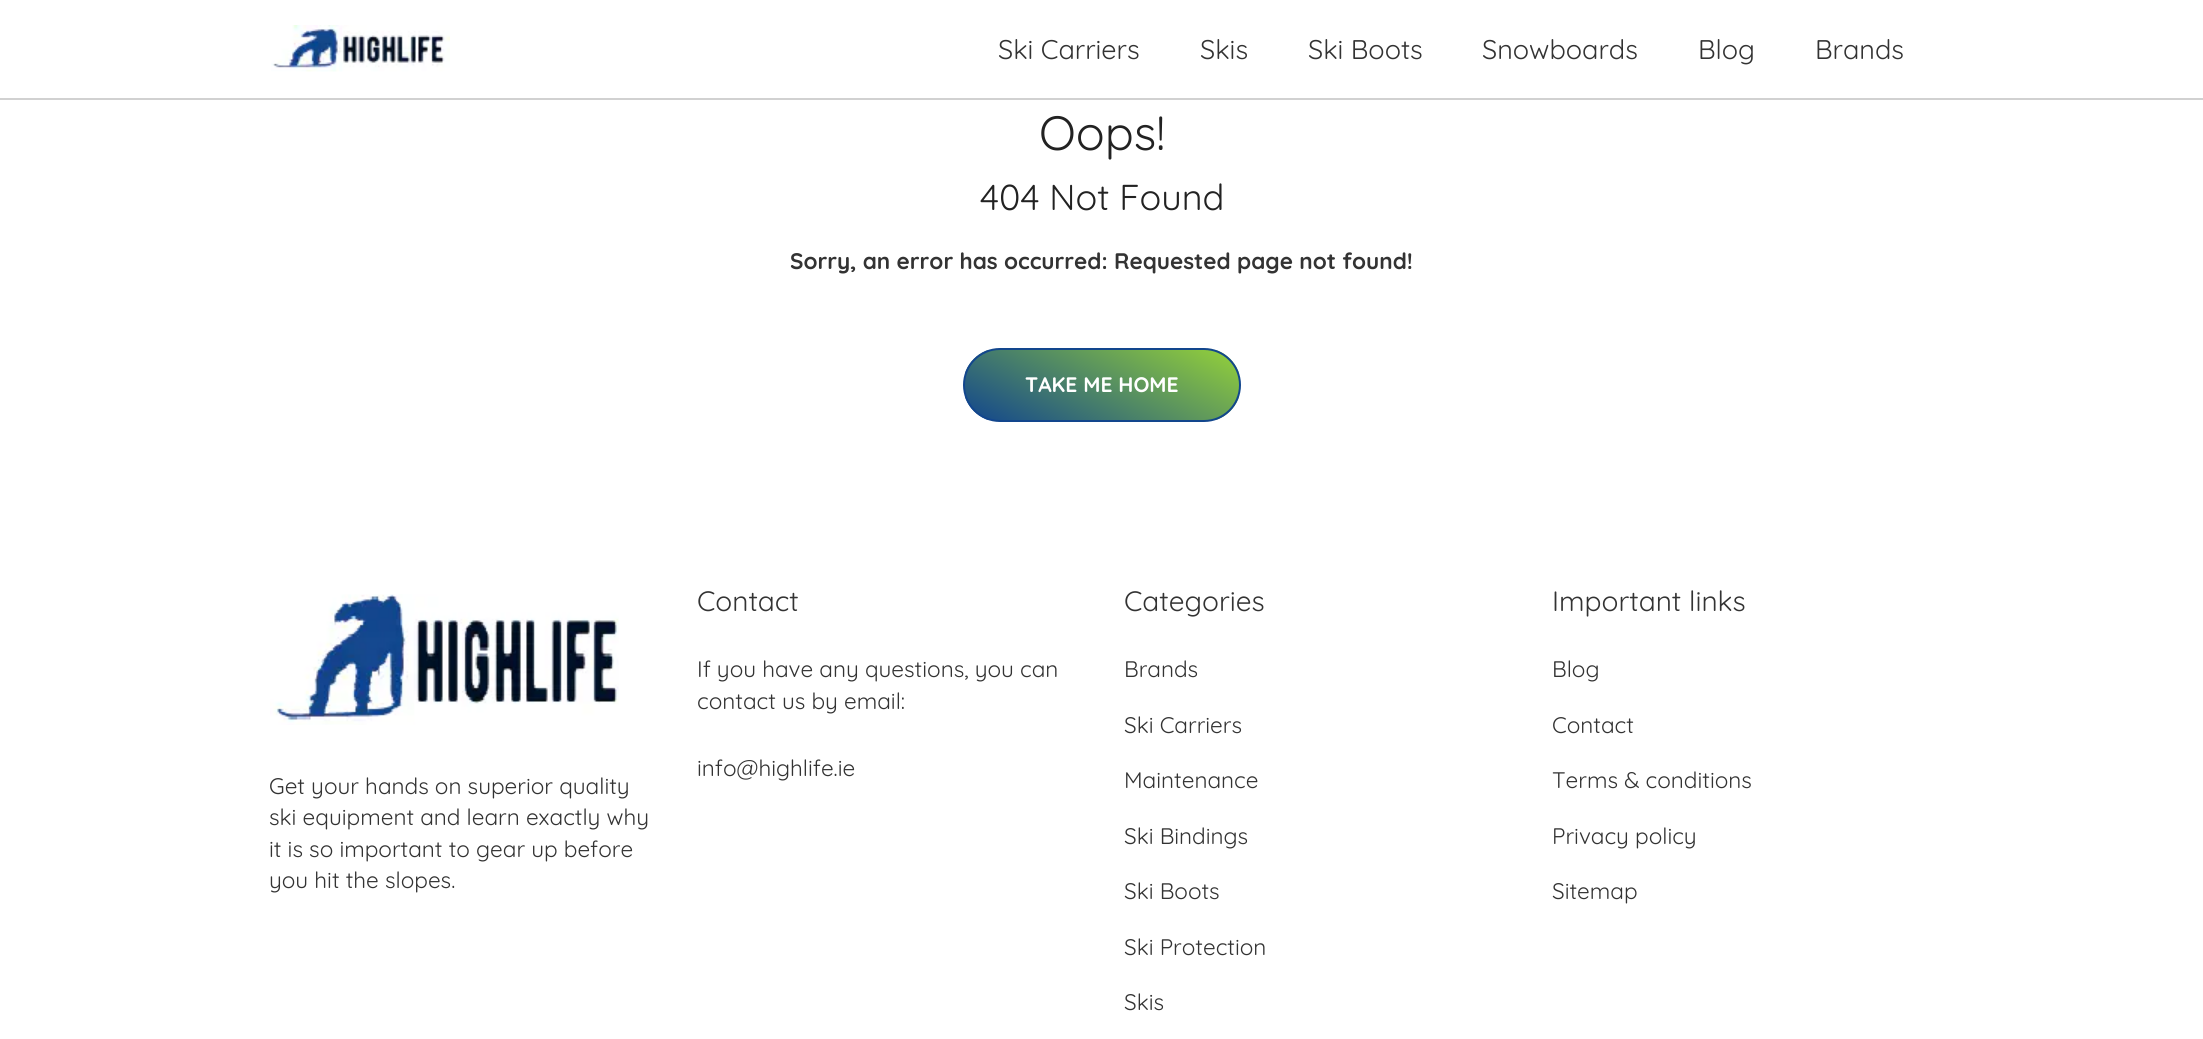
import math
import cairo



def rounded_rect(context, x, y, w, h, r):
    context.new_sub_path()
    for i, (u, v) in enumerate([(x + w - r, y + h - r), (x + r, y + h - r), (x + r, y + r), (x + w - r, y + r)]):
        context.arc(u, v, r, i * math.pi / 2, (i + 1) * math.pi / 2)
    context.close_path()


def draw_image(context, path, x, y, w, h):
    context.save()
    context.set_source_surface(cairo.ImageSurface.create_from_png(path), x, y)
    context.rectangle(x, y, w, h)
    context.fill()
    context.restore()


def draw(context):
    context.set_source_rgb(1, 1, 1)
    context.paint()
    context.set_source_rgb(209 / 255, 209 / 255, 209 / 255)
    context.rectangle(0, 98, 2203, 2)
    context.fill()
    draw_image(context, "images/1.png", 271, 25, 179, 47)
    context.save()
    rounded_rect(context, 963, 348, 278, 74, 37)
    context.clip()
    gradient = cairo.LinearGradient(1059, 468, 1144, 301)
    gradient.add_color_stop_rgba(0, 18 / 255, 70 / 255, 141 / 255, 1)
    gradient.add_color_stop_rgba(1, 149 / 255, 210 / 255, 57 / 255, 1)
    context.set_source(gradient)
    context.rectangle(965, 350, 274, 70)
    context.fill()
    context.restore()
    rounded_rect(context, 964, 349, 276, 72, 36)
    context.set_source_rgb(18 / 255, 70 / 255, 141 / 255)
    context.stroke()
    draw_image(context, "images/2.png", 270, 594, 349, 131)
    context.select_font_face("Quicksand")
    context.set_font_size(27)
    context.set_source_rgb(51 / 255, 51 / 255, 51 / 255)
    context.move_to(998, 59)
    context.show_text("Ski Carriers")
    context.move_to(1200, 59)
    context.show_text("Skis")
    context.move_to(1308, 59)
    context.show_text("Ski Boots")
    context.move_to(1482, 59)
    context.show_text("Snowboards")
    context.move_to(1698, 59)
    context.show_text("Blog")
    context.move_to(1815, 59)
    context.show_text("Brands")
    context.set_font_size(48)
    context.set_source_rgb(34 / 255, 34 / 255, 34 / 255)
    context.move_to(1039, 150)
    context.show_text("Oops!")
    context.set_font_size(36)
    context.move_to(980, 210)
    context.show_text("404 Not Found")
    context.select_font_face("Quicksand", cairo.FontSlant.NORMAL, cairo.FontWeight.BOLD)
    context.set_font_size(22.5)
    context.set_source_rgb(51 / 255, 51 / 255, 51 / 255)
    context.move_to(790, 269)
    context.show_text("Sorry, an error has occurred: Requested page not found!")
    context.set_font_size(21)
    context.set_source_rgb(1, 1, 1)
    context.move_to(1025, 392)
    context.show_text("TAKE ME HOME")
    context.select_font_face("Quicksand")
    context.set_font_size(22.5)
    context.set_source_rgb(51 / 255, 51 / 255, 51 / 255)
    context.move_to(269, 794)
    context.show_text("Get your hands on superior quality")
    context.move_to(269, 825)
    context.show_text("ski equipment and learn exactly why")
    context.move_to(269, 857)
    context.show_text("it is so important to gear up before")
    context.move_to(269, 888)
    context.show_text("you hit the slopes.")
    context.set_font_size(28)
    context.move_to(697, 611)
    context.show_text("Contact")
    context.set_font_size(22.5)
    context.move_to(697, 677)
    context.show_text("If you have any questions, you can")
    context.move_to(697, 709)
    context.show_text("contact us by email:")
    context.move_to(697, 776)
    context.show_text("info@highlife.ie")
    context.set_font_size(28)
    context.move_to(1124, 611)
    context.show_text("Categories")
    context.set_font_size(22.5)
    context.move_to(1124, 677)
    context.show_text("Brands")
    context.move_to(1124, 733)
    context.show_text("Ski Carriers")
    context.move_to(1124, 788)
    context.show_text("Maintenance")
    context.move_to(1124, 844)
    context.show_text("Ski Bindings")
    context.move_to(1124, 899)
    context.show_text("Ski Boots")
    context.move_to(1124, 955)
    context.show_text("Ski Protection")
    context.move_to(1124, 1010)
    context.show_text("Skis")
    context.set_font_size(28)
    context.move_to(1552, 611)
    context.show_text("Important links")
    context.set_font_size(22.5)
    context.move_to(1552, 677)
    context.show_text("Blog")
    context.move_to(1552, 733)
    context.show_text("Contact")
    context.move_to(1552, 788)
    context.show_text("Terms & conditions")
    context.move_to(1552, 844)
    context.show_text("Privacy policy")
    context.move_to(1552, 899)
    context.show_text("Sitemap")


surface = cairo.ImageSurface(cairo.Format.RGB24, 2203, 1039)
context = cairo.Context(surface)
options = cairo.FontOptions()
options.set_hint_metrics(cairo.HintMetrics.OFF)
options.set_hint_style(cairo.HintStyle.NONE)
context.set_font_options(options)
context.set_miter_limit(4)
draw(context)
surface.write_to_png("out.png")
